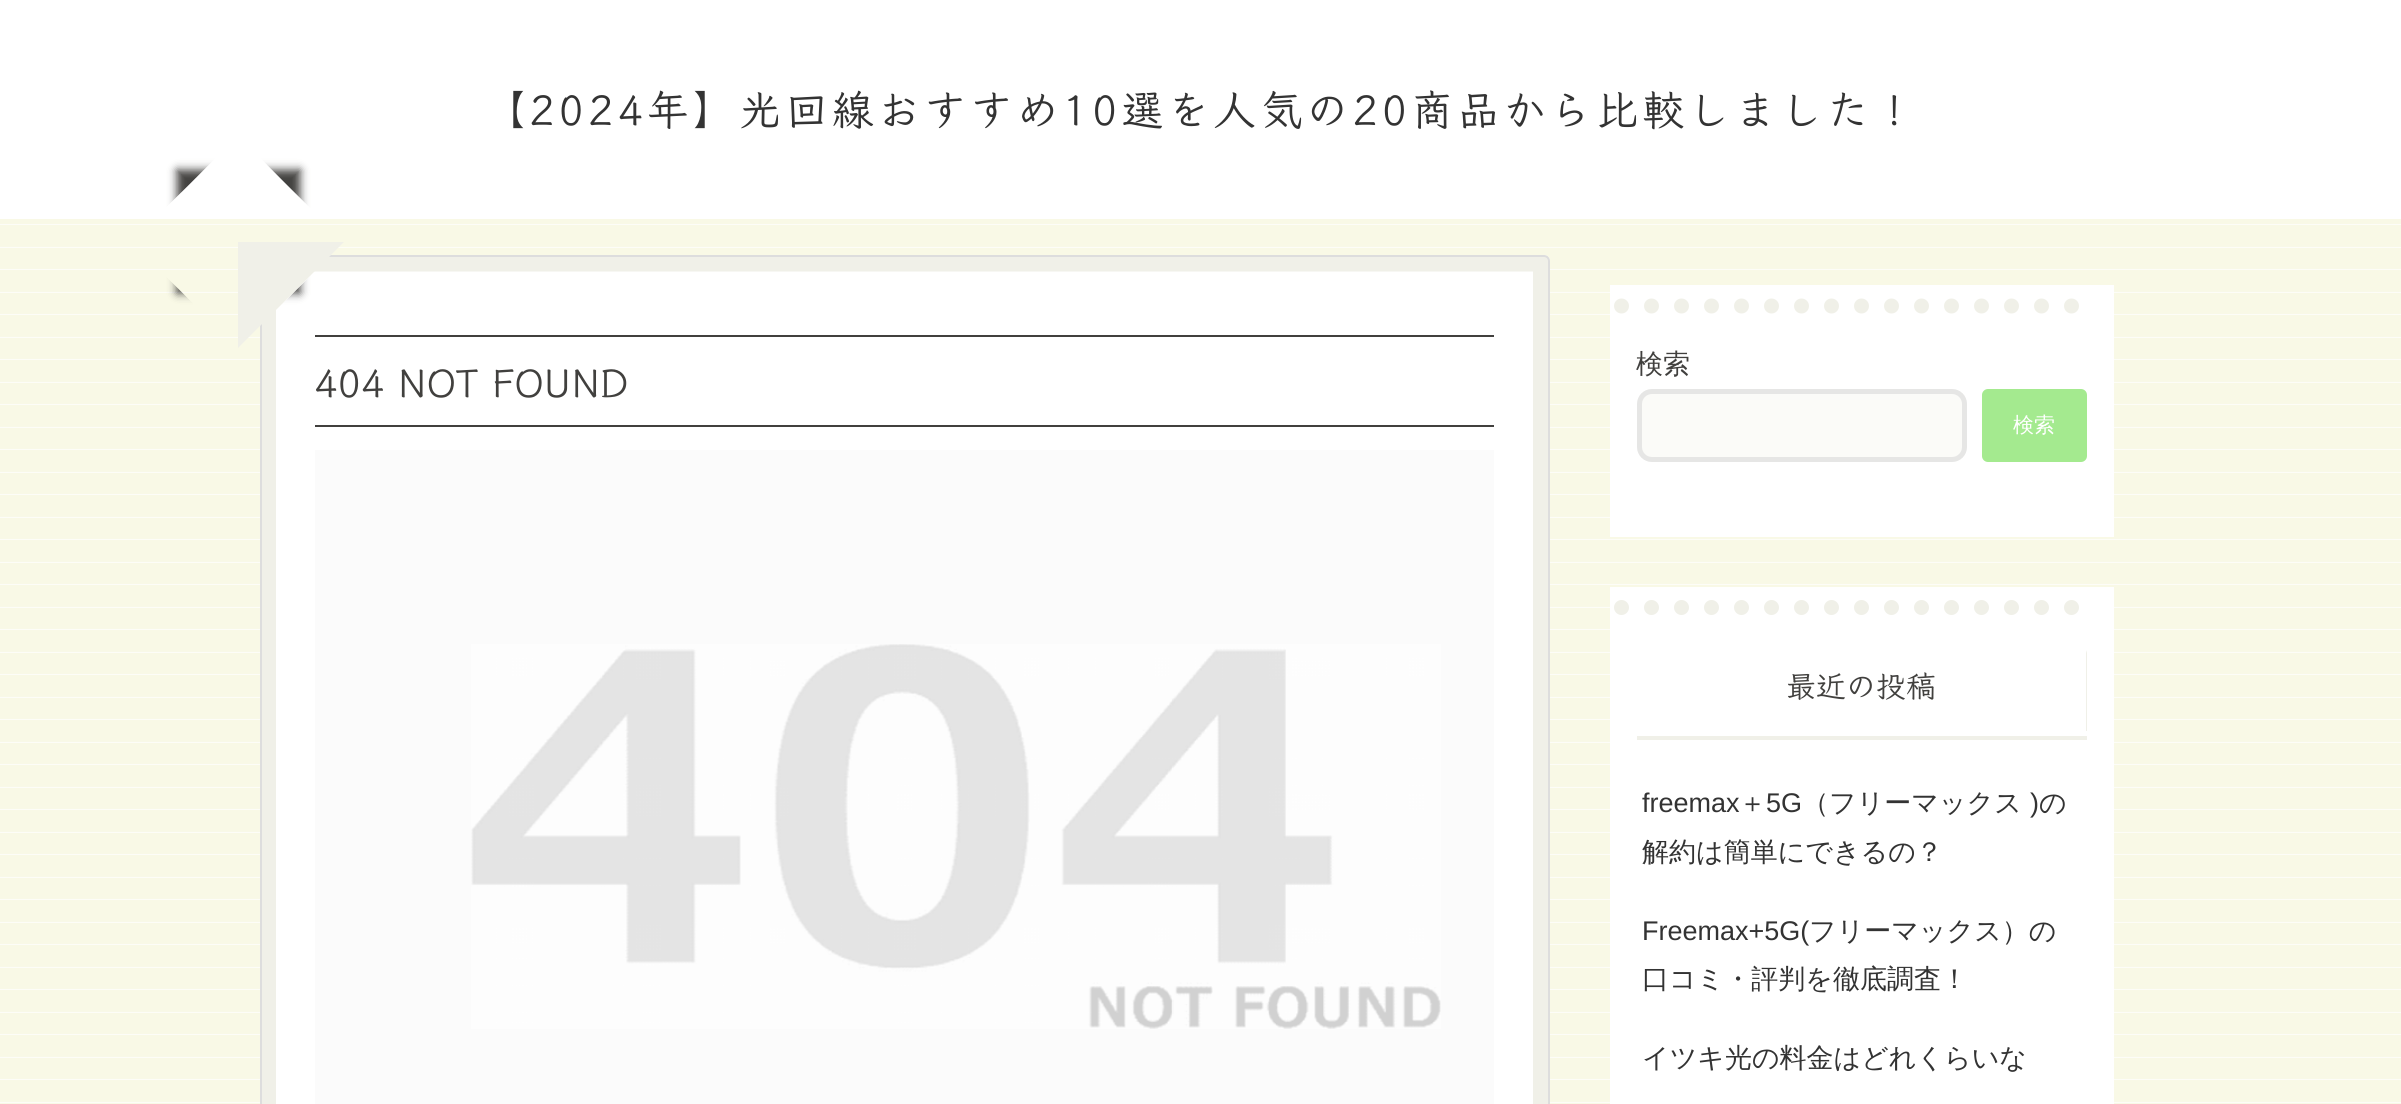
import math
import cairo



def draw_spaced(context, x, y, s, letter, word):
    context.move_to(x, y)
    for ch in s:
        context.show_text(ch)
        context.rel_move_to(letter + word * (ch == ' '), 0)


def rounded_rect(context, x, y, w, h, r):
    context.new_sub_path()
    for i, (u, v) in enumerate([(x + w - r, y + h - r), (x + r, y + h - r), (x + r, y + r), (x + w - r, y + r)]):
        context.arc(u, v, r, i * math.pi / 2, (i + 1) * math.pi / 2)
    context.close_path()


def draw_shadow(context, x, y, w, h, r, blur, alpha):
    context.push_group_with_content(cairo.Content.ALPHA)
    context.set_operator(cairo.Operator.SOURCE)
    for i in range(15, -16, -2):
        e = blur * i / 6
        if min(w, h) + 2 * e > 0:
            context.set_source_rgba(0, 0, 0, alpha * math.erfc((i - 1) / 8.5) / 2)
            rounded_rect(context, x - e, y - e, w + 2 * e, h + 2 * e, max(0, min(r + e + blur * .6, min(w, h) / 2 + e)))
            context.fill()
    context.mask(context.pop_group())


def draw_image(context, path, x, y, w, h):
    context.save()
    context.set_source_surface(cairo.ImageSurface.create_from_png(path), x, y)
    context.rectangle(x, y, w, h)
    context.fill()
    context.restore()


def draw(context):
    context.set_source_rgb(249 / 255, 249 / 255, 230 / 255)
    context.paint()
    draw_image(context, "images/1.png", 0, 223, 2401, 880)
    context.set_source_rgb(1, 1, 1)
    context.rectangle(0, 0, 2401, 219)
    context.fill()
    rounded_rect(context, 260, 255, 1290, 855, 6)
    context.fill()
    context.new_path()
    context.move_to(268.5, 264)
    context.line_to(1540.5, 264)
    context.line_to(1540.5, 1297.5)
    context.line_to(268.5, 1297.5)
    context.close_path()
    context.set_source_rgb(240 / 255, 240 / 255, 232 / 255)
    context.set_line_width(15)
    context.stroke()
    rounded_rect(context, 261, 256, 1288, 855, 5)
    context.set_source_rgb(221 / 255, 221 / 255, 221 / 255)
    context.set_line_width(2)
    context.stroke()
    context.save()
    context.set_fill_rule(cairo.FillRule.EVEN_ODD)
    context.new_path()
    context.move_to(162, 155)
    context.line_to(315, 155)
    context.line_to(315, 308)
    context.line_to(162, 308)
    context.close_path()
    context.move_to(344, 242)
    context.line_to(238, 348)
    context.line_to(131.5, 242)
    context.line_to(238, 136)
    context.close_path()
    context.clip()
    context.set_source_rgb(65 / 255, 64 / 255, 62 / 255)
    draw_shadow(context, 177, 170, 123, 123, 0, 4.5, 1)
    context.restore()
    context.set_source_rgb(65 / 255, 64 / 255, 62 / 255)
    context.rectangle(315, 335, 1179, 2)
    context.fill()
    context.set_source_rgb(240 / 255, 240 / 255, 232 / 255)
    context.new_path()
    context.move_to(344, 242)
    context.line_to(238, 348)
    context.line_to(238, 242)
    context.close_path()
    context.fill()
    context.set_source_rgb(65 / 255, 64 / 255, 62 / 255)
    context.rectangle(315, 425, 1179, 2)
    context.fill()
    context.set_source_rgb(251 / 255, 251 / 255, 251 / 255)
    context.rectangle(315, 450, 1179, 654)
    context.fill()
    draw_image(context, "images/2.png", 471, 644, 970, 385)
    context.set_source_rgb(1, 1, 1)
    context.rectangle(1610, 285, 504, 252)
    context.fill()
    context.new_path()
    context.move_to(1621.5, 306)
    context.line_to(2100, 306)
    context.set_source_rgb(240 / 255, 240 / 255, 232 / 255)
    context.set_line_width(15)
    context.set_line_cap(cairo.LineCap.ROUND)
    context.set_dash([0, 30])
    context.stroke()
    context.set_source_rgb(251 / 255, 251 / 255, 248 / 255)
    rounded_rect(context, 1637, 389, 330, 73, 15)
    context.fill()
    rounded_rect(context, 1639.5, 391.5, 325, 68, 12.5)
    context.set_source_rgba(221 / 255, 221 / 255, 221 / 255, 0.7)
    context.set_line_width(5)
    context.set_line_cap(cairo.LineCap.BUTT)
    context.set_dash([])
    context.stroke()
    context.set_source_rgb(164 / 255, 234 / 255, 143 / 255)
    rounded_rect(context, 1982, 389, 105, 73, 6)
    context.fill()
    context.set_source_rgb(1, 1, 1)
    context.rectangle(1610, 587, 504, 517)
    context.fill()
    context.new_path()
    context.move_to(1621.5, 607.5)
    context.line_to(2100, 607.5)
    context.set_source_rgb(240 / 255, 240 / 255, 232 / 255)
    context.set_line_width(15)
    context.set_line_cap(cairo.LineCap.ROUND)
    context.set_dash([0, 30])
    context.stroke()
    context.new_path()
    context.move_to(1637, 735)
    context.line_to(1637, 740)
    context.line_to(2087, 740)
    context.line_to(2087, 653)
    context.line_to(2086, 650)
    context.line_to(2086, 735)
    context.close_path()
    context.fill()
    context.set_source_rgb(1, 1, 1)
    context.rectangle(1637, 731, 450, 5)
    context.fill()
    context.select_font_face("Klee One SemiBold")
    context.set_font_size(42)
    context.set_source_rgb(51 / 255, 51 / 255, 51 / 255)
    draw_spaced(context, 483, 125, "【2024年】光回線おすすめ10選を人気の20商品から比較しました！", 4.2, 0)
    context.set_font_size(39)
    context.set_source_rgb(65 / 255, 64 / 255, 62 / 255)
    context.move_to(314, 397)
    context.show_text("404 NOT FOUND")
    context.select_font_face("WenQuanYi Zen Hei Medium")
    context.set_font_size(27)
    context.move_to(1636, 373)
    context.show_text("検索")
    context.set_font_size(21)
    context.set_source_rgb(1, 1, 1)
    context.move_to(2013, 432)
    context.show_text("検索")
    context.select_font_face("Klee One SemiBold")
    context.set_font_size(30)
    context.set_source_rgb(65 / 255, 64 / 255, 62 / 255)
    context.move_to(1786, 697)
    context.show_text("最近の投稿")
    context.select_font_face("Liberation Sans")
    context.set_font_size(27)
    context.set_source_rgb(51 / 255, 51 / 255, 51 / 255)
    context.move_to(1642, 812)
    context.show_text("freemax")
    context.select_font_face("WenQuanYi Zen Hei Medium")
    context.move_to(1739, 812)
    context.show_text("＋")
    context.select_font_face("Liberation Sans")
    context.move_to(1766, 812)
    context.show_text("5G")
    context.select_font_face("WenQuanYi Zen Hei Medium")
    context.move_to(1802, 812)
    context.show_text("（フリーマックス")
    context.select_font_face("Liberation Sans")
    context.move_to(2030, 812)
    context.show_text(")")
    context.select_font_face("WenQuanYi Zen Hei Medium")
    context.move_to(2039, 812)
    context.show_text("の")
    context.move_to(1642, 861)
    context.show_text("解約は簡単にできるの？")
    context.select_font_face("Liberation Sans")
    context.move_to(1642, 940)
    context.show_text("Freemax+5G(")
    context.select_font_face("WenQuanYi Zen Hei Medium")
    context.move_to(1809, 940)
    context.show_text("フリーマックス）の")
    context.move_to(1642, 988)
    context.show_text("口コミ・評判を徹底調査！")
    context.move_to(1642, 1067)
    context.show_text("イツキ光の料金はどれくらいな")


surface = cairo.ImageSurface(cairo.Format.RGB24, 2401, 1104)
context = cairo.Context(surface)
options = cairo.FontOptions()
options.set_hint_metrics(cairo.HintMetrics.OFF)
options.set_hint_style(cairo.HintStyle.NONE)
context.set_font_options(options)
context.set_miter_limit(4)
draw(context)
surface.write_to_png("out.png")
